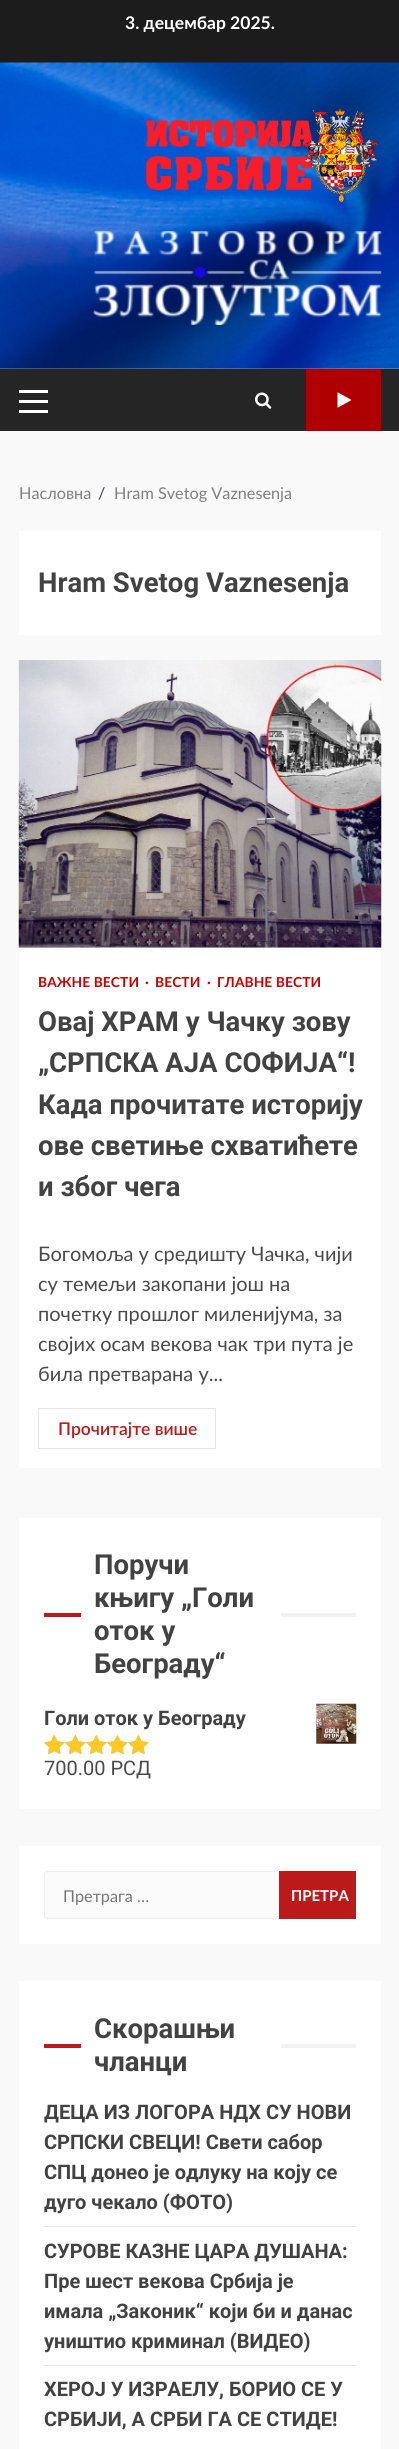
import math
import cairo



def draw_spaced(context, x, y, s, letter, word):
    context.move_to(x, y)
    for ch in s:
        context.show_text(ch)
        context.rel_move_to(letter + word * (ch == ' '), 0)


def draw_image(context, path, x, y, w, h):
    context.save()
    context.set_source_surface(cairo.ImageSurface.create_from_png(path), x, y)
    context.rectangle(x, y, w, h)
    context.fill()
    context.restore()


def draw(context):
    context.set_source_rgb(249 / 255, 249 / 255, 249 / 255)
    context.paint()
    context.set_source_rgb(28 / 255, 28 / 255, 28 / 255)
    context.rectangle(0, 0, 399, 63)
    context.fill()
    draw_image(context, "images/1.png", 0, 62, 399, 307)
    draw_image(context, "images/2.png", 145, 108, 234, 95)
    draw_image(context, "images/3.png", 93, 231, 289, 94)
    context.set_source_rgb(37 / 255, 37 / 255, 37 / 255)
    context.rectangle(0, 369, 399, 62)
    context.fill()
    context.set_source_rgb(1, 1, 1)
    context.rectangle(19, 400, 29, 3)
    context.fill()
    context.rectangle(19, 390, 29, 3)
    context.fill()
    context.rectangle(19, 410, 29, 3)
    context.fill()
    draw_image(context, "images/4.png", 255, 392, 17, 17)
    context.set_source_rgb(175 / 255, 0, 0)
    context.rectangle(306, 369, 75, 62)
    context.fill()
    draw_image(context, "images/5.png", 337, 392, 15, 16)
    context.set_source_rgb(1, 1, 1)
    context.rectangle(19, 531, 362, 104)
    context.fill()
    context.rectangle(19, 948, 362, 520)
    context.fill()
    context.set_source_rgb(234 / 255, 234 / 255, 234 / 255)
    context.rectangle(19, 947, 362, 1)
    context.fill()
    draw_image(context, "images/6.png", 18, 660, 364, 288)
    context.rectangle(38.5, 1408.5, 177, 40)
    context.set_source_rgb(230 / 255, 230 / 255, 230 / 255)
    context.set_line_width(1)
    context.stroke()
    context.set_source_rgb(1, 1, 1)
    context.rectangle(19, 1518, 362, 291)
    context.fill()
    context.set_source_rgb(187 / 255, 25 / 255, 26 / 255)
    context.rectangle(44, 1613, 37, 4)
    context.fill()
    context.set_source_rgb(242 / 255, 242 / 255, 242 / 255)
    context.rectangle(281, 1613, 75, 4)
    context.fill()
    draw_image(context, "images/7.png", 316, 1703, 41, 41)
    draw_image(context, "images/9.png", 44, 1735, 105, 19)
    draw_image(context, "images/8.png", 44, 1734, 105, 20)
    context.set_source_rgb(1, 1, 1)
    context.rectangle(19, 1846, 362, 98)
    context.fill()
    context.set_source_rgb(250 / 255, 250 / 255, 250 / 255)
    context.new_path()
    context.move_to(48, 1871.5)
    context.line_to(278.5, 1871.5)
    context.line_to(278.5, 1918.5)
    context.line_to(48, 1918.5)
    context.curve_to(46, 1918.5, 44.5, 1917, 44.5, 1915)
    context.line_to(44.5, 1875)
    context.curve_to(44.5, 1873, 46, 1871.5, 48, 1871.5)
    context.close_path()
    context.fill_preserve()
    context.set_source_rgb(238 / 255, 238 / 255, 238 / 255)
    context.stroke()
    context.set_source_rgb(187 / 255, 25 / 255, 26 / 255)
    context.rectangle(279, 1871, 77, 48)
    context.fill()
    context.set_source_rgb(1, 1, 1)
    context.rectangle(19, 1981, 362, 468)
    context.fill()
    context.set_source_rgb(187 / 255, 25 / 255, 26 / 255)
    context.rectangle(44, 2044, 37, 4)
    context.fill()
    context.set_source_rgb(242 / 255, 242 / 255, 242 / 255)
    context.rectangle(281, 2044, 75, 4)
    context.fill()
    context.set_source_rgb(230 / 255, 230 / 255, 230 / 255)
    context.rectangle(44, 2226, 312, 1)
    context.fill()
    context.rectangle(44, 2365, 312, 1)
    context.fill()
    context.select_font_face("Lato", cairo.FontSlant.NORMAL, cairo.FontWeight.BOLD)
    context.set_font_size(17.5)
    context.set_source_rgb(1, 1, 1)
    context.move_to(125, 29)
    context.show_text("3. децембар 2025.")
    context.select_font_face("Lato")
    context.set_font_size(16.25)
    context.set_source_rgb(127 / 255, 127 / 255, 127 / 255)
    context.move_to(19, 499)
    context.show_text("Насловна")
    context.set_source_rgb(57 / 255, 62 / 255, 70 / 255)
    context.move_to(98, 499)
    context.show_text("/")
    context.set_source_rgb(127 / 255, 127 / 255, 127 / 255)
    context.move_to(114, 499)
    context.show_text("Hram Svetog Vaznesenja")
    context.select_font_face("Roboto", cairo.FontSlant.NORMAL, cairo.FontWeight.BOLD)
    context.set_font_size(27.5)
    context.set_source_rgb(66 / 255, 66 / 255, 66 / 255)
    context.move_to(38, 592)
    context.show_text("Hram Svetog Vaznesenja")
    context.select_font_face("Lato", cairo.FontSlant.NORMAL, cairo.FontWeight.BOLD)
    context.set_font_size(13.75)
    context.set_source_rgb(204 / 255, 0, 0)
    draw_spaced(context, 38, 987, "ВАЖНЕ ВЕСТИ", 0.1, 0)
    draw_spaced(context, 145, 987, "∙", 0.1, 0)
    draw_spaced(context, 155, 987, "ВЕСТИ", 0.1, 0)
    draw_spaced(context, 207, 987, "∙", 0.1, 0)
    draw_spaced(context, 217, 987, "ГЛАВНЕ ВЕСТИ", 0.1, 0)
    context.select_font_face("Roboto", cairo.FontSlant.NORMAL, cairo.FontWeight.BOLD)
    context.set_font_size(27.5)
    context.set_source_rgb(66 / 255, 66 / 255, 66 / 255)
    context.move_to(38, 1031)
    context.show_text("Овај ХРАМ у Чачку зову")
    context.move_to(38, 1072)
    context.show_text("„СРПСКА АЈА СОФИЈА“!")
    context.move_to(38, 1114)
    context.show_text("Када прочитате историју")
    context.move_to(38, 1155)
    context.show_text("ове светиње схватићете")
    context.move_to(38, 1196)
    context.show_text("и због чега")
    context.select_font_face("Lato")
    context.set_font_size(20)
    context.set_source_rgb(74 / 255, 74 / 255, 74 / 255)
    context.move_to(38, 1261)
    context.show_text("Богомоља у средишту Чачка, чији")
    context.move_to(38, 1291)
    context.show_text("су темељи закопани још на")
    context.move_to(38, 1321)
    context.show_text("почетку прошлог миленијума, за")
    context.move_to(38, 1351)
    context.show_text("својих осам векова чак три пута је")
    context.move_to(38, 1381)
    context.show_text("била претварана у...")
    context.select_font_face("Lato SemiBold")
    context.set_font_size(17.5)
    context.set_source_rgb(187 / 255, 25 / 255, 26 / 255)
    context.move_to(58, 1435)
    context.show_text("Прочитајте више")
    context.select_font_face("Roboto", cairo.FontSlant.NORMAL, cairo.FontWeight.BOLD)
    context.set_font_size(27.5)
    context.set_source_rgb(66 / 255, 66 / 255, 66 / 255)
    context.move_to(94, 1574)
    context.show_text("Поручи")
    context.move_to(94, 1607)
    context.show_text("књигу „Голи")
    context.move_to(94, 1640)
    context.show_text("оток у")
    context.move_to(94, 1673)
    context.show_text("Београду“")
    context.set_font_size(20)
    context.move_to(44, 1725)
    context.show_text("Голи оток у Београду")
    context.select_font_face("Roboto")
    context.set_source_rgb(74 / 255, 74 / 255, 74 / 255)
    context.move_to(44, 1775)
    context.show_text("700.00 РСД")
    context.select_font_face("Lato")
    context.set_font_size(16.25)
    context.set_source_rgb(117 / 255, 117 / 255, 117 / 255)
    context.move_to(63, 1902)
    context.show_text("Претрага …")
    context.select_font_face("Lato", cairo.FontSlant.NORMAL, cairo.FontWeight.BOLD)
    context.set_font_size(15)
    context.set_source_rgb(1, 1, 1)
    context.move_to(291, 1901)
    context.show_text("ПРЕТРА")
    context.select_font_face("Roboto", cairo.FontSlant.NORMAL, cairo.FontWeight.BOLD)
    context.set_font_size(27.5)
    context.set_source_rgb(66 / 255, 66 / 255, 66 / 255)
    context.move_to(94, 2038)
    context.show_text("Скорашњи")
    context.move_to(94, 2071)
    context.show_text("чланци")
    context.set_font_size(20)
    context.move_to(44, 2119)
    context.show_text("ДЕЦА ИЗ ЛОГОРА НДХ СУ НОВИ")
    context.move_to(44, 2149)
    context.show_text("СРПСКИ СВЕЦИ! Свети сабор")
    context.move_to(44, 2179)
    context.show_text("СПЦ донео је одлуку на коју се")
    context.move_to(44, 2209)
    context.show_text("дуго чекало (ФОТО)")
    context.move_to(44, 2258)
    context.show_text("СУРОВЕ КАЗНЕ ЦАРА ДУШАНА:")
    context.move_to(44, 2288)
    context.show_text("Пре шест векова Србија је")
    context.move_to(44, 2318)
    context.show_text("имала „Законик“ који би и данас")
    context.move_to(44, 2348)
    context.show_text("уништио криминал (ВИДЕО)")
    context.move_to(44, 2396)
    context.show_text("ХЕРОЈ У ИЗРАЕЛУ, БОРИО СЕ У")
    context.move_to(44, 2426)
    context.show_text("СРБИЈИ, А СРБИ ГА СЕ СТИДЕ!")


surface = cairo.ImageSurface(cairo.Format.RGB24, 399, 2449)
context = cairo.Context(surface)
options = cairo.FontOptions()
options.set_hint_metrics(cairo.HintMetrics.OFF)
options.set_hint_style(cairo.HintStyle.NONE)
context.set_font_options(options)
context.set_miter_limit(4)
draw(context)
surface.write_to_png("out.png")
